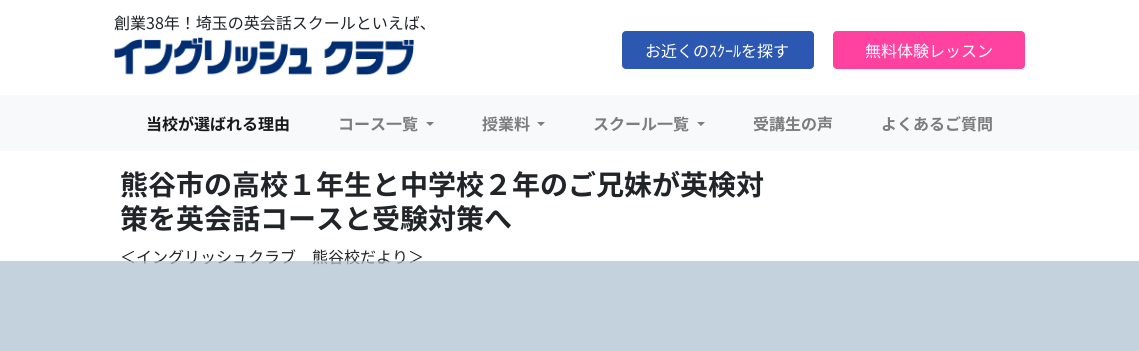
import math
import cairo



def rounded_rect(context, x, y, w, h, r):
    context.new_sub_path()
    for i, (u, v) in enumerate([(x + w - r, y + h - r), (x + r, y + h - r), (x + r, y + r), (x + w - r, y + r)]):
        context.arc(u, v, r, i * math.pi / 2, (i + 1) * math.pi / 2)
    context.close_path()


def draw_image(context, path, x, y, w, h):
    context.save()
    context.set_source_surface(cairo.ImageSurface.create_from_png(path), x, y)
    context.rectangle(x, y, w, h)
    context.fill()
    context.restore()


def draw(context):
    context.set_source_rgb(1, 1, 1)
    context.paint()
    draw_image(context, "images/1.png", 114, 37, 300, 39)
    context.set_source_rgb(44 / 255, 88 / 255, 177 / 255)
    rounded_rect(context, 622.5, 31.5, 191, 37, 3.5)
    context.fill_preserve()
    context.set_line_width(1)
    context.stroke()
    context.set_source_rgb(1, 66 / 255, 159 / 255)
    rounded_rect(context, 833.5, 31.5, 191, 37, 3.5)
    context.fill_preserve()
    context.stroke()
    context.set_source_rgb(248 / 255, 249 / 255, 250 / 255)
    context.rectangle(0, 95, 1139, 56)
    context.fill()
    context.set_source_rgb(124 / 255, 125 / 255, 125 / 255)
    context.new_path()
    context.move_to(426, 122)
    context.line_to(434, 122)
    context.line_to(430, 126)
    context.close_path()
    context.fill()
    context.new_path()
    context.move_to(537, 122)
    context.line_to(545, 122)
    context.line_to(541, 126)
    context.close_path()
    context.fill()
    context.new_path()
    context.move_to(697, 122)
    context.line_to(705, 122)
    context.line_to(701, 126)
    context.close_path()
    context.fill()
    context.select_font_face("Noto Sans JP")
    context.set_font_size(16)
    context.set_source_rgb(33 / 255, 37 / 255, 41 / 255)
    context.move_to(114, 29)
    context.show_text("創業38年！埼玉の英会話スクールといえば、")
    context.set_source_rgb(1, 1, 1)
    context.move_to(645, 57)
    context.show_text("お近くのｽｸｰﾙを探す")
    context.move_to(865, 57)
    context.show_text("無料体験レッスン")
    context.select_font_face("Noto Sans JP", cairo.FontSlant.NORMAL, cairo.FontWeight.BOLD)
    context.set_source_rgb(25 / 255, 25 / 255, 25 / 255)
    context.move_to(146, 130)
    context.show_text("当校が選ばれる理由")
    context.set_source_rgb(124 / 255, 125 / 255, 125 / 255)
    context.move_to(338, 130)
    context.show_text("コース一覧")
    context.move_to(482, 130)
    context.show_text("授業料")
    context.move_to(593, 130)
    context.show_text("スクール一覧")
    context.move_to(753, 130)
    context.show_text("受講生の声")
    context.move_to(881, 130)
    context.show_text("よくあるご質問")
    context.set_font_size(28)
    context.set_source_rgb(33 / 255, 37 / 255, 41 / 255)
    context.move_to(120, 195)
    context.show_text("熊谷市の高校１年生と中学校２年のご兄妹が英検対")
    context.move_to(120, 229)
    context.show_text("策を英会話コースと受験対策へ")
    context.select_font_face("Noto Sans JP")
    context.set_font_size(16)
    context.move_to(120, 263)
    context.show_text("＜イングリッシュクラブ　熊谷校だより＞")
    context.set_source_rgba(171 / 255, 191 / 255, 207 / 255, 0.7)
    context.rectangle(0, 261, 1139, 90)
    context.fill()


surface = cairo.ImageSurface(cairo.Format.RGB24, 1139, 351)
context = cairo.Context(surface)
options = cairo.FontOptions()
options.set_hint_metrics(cairo.HintMetrics.OFF)
options.set_hint_style(cairo.HintStyle.NONE)
context.set_font_options(options)
context.set_miter_limit(4)
draw(context)
surface.write_to_png("out.png")
